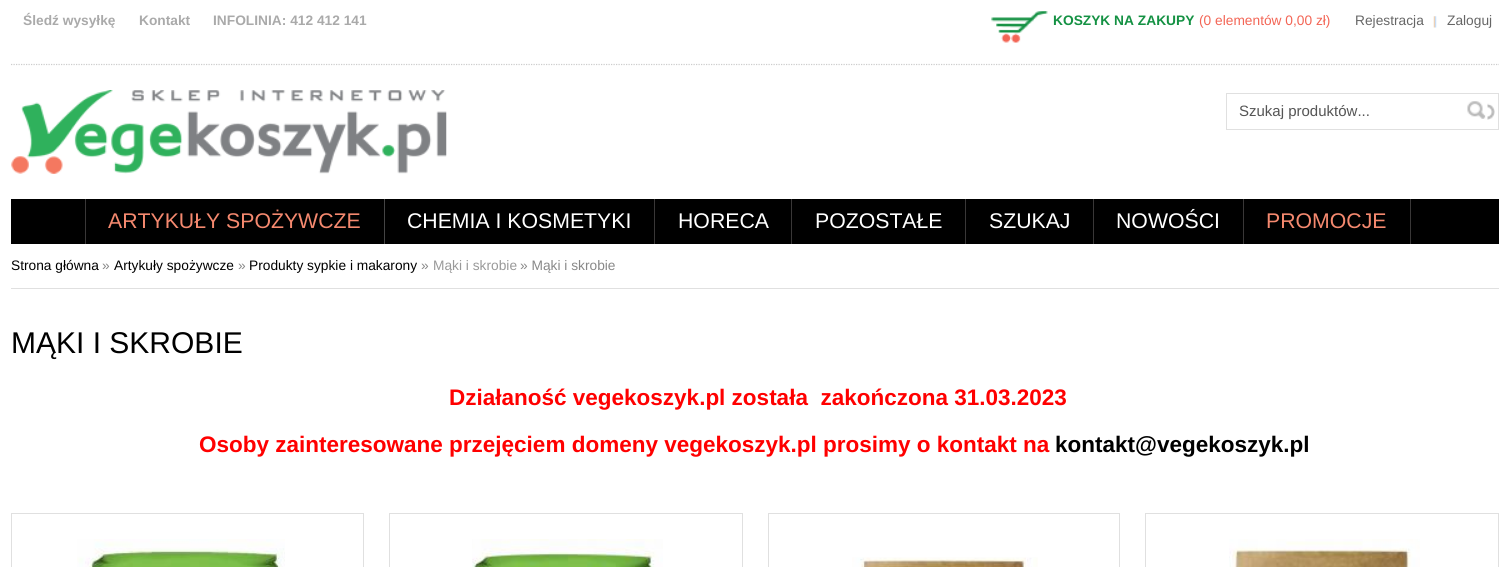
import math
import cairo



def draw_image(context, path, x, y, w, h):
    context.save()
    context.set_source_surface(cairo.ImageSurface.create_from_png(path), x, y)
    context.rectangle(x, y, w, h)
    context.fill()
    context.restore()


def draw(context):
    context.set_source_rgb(1, 1, 1)
    context.paint()
    context.new_path()
    context.move_to(11, 64.5)
    context.line_to(1499, 64.5)
    context.set_source_rgb(204 / 255, 204 / 255, 204 / 255)
    context.set_line_width(1.2)
    context.set_dash([1.25, 1.25])
    context.stroke()
    draw_image(context, "images/1.png", 991, 11, 57, 32)
    draw_image(context, "images/2.png", 1433, 16, 4, 12)
    draw_image(context, "images/3.png", 11, 90, 436, 84)
    context.rectangle(1226.5, 93.5, 272, 36)
    context.set_source_rgb(224 / 255, 224 / 255, 224 / 255)
    context.set_line_width(1)
    context.set_dash([])
    context.stroke()
    draw_image(context, "images/4.png", 1487, 103, 8, 17)
    draw_image(context, "images/5.png", 1467, 101, 21, 19)
    context.set_source_rgb(0, 0, 0)
    context.rectangle(11, 199, 1488, 45)
    context.fill()
    context.set_source_rgb(57 / 255, 55 / 255, 55 / 255)
    context.rectangle(85, 199, 1, 45)
    context.fill()
    context.set_source_rgb(68 / 255, 68 / 255, 68 / 255)
    context.rectangle(384, 199, 1, 45)
    context.fill()
    context.set_source_rgb(57 / 255, 55 / 255, 55 / 255)
    context.rectangle(654, 199, 1, 45)
    context.fill()
    context.rectangle(791, 199, 1, 45)
    context.fill()
    context.rectangle(965, 199, 1, 45)
    context.fill()
    context.rectangle(1093, 199, 1, 45)
    context.fill()
    context.rectangle(1243, 199, 1, 45)
    context.fill()
    context.rectangle(1410, 199, 1, 45)
    context.fill()
    context.set_source_rgb(224 / 255, 224 / 255, 224 / 255)
    context.rectangle(11, 288, 1488, 1)
    context.fill()
    context.rectangle(11.5, 513.5, 352, 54)
    context.stroke()
    draw_image(context, "images/6.png", 77, 539, 208, 28)
    context.rectangle(389.5, 513.5, 353, 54)
    context.stroke()
    draw_image(context, "images/7.png", 472, 539, 191, 28)
    context.rectangle(768.5, 513.5, 351, 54)
    context.stroke()
    draw_image(context, "images/8.png", 852, 557, 186, 10)
    context.rectangle(1145.5, 513.5, 353, 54)
    context.stroke()
    draw_image(context, "images/9.png", 1229, 539, 191, 28)
    context.select_font_face("Liberation Sans", cairo.FontSlant.NORMAL, cairo.FontWeight.BOLD)
    context.set_font_size(13.75)
    context.set_source_rgb(170 / 255, 170 / 255, 170 / 255)
    context.move_to(23, 25)
    context.show_text("Śledź wysyłkę")
    context.move_to(139, 25)
    context.show_text("Kontakt")
    context.move_to(213, 25)
    context.show_text("INFOLINIA: 412 412 141")
    context.set_source_rgb(20 / 255, 145 / 255, 67 / 255)
    context.move_to(1053, 25)
    context.show_text("KOSZYK NA ZAKUPY")
    context.select_font_face("Liberation Sans")
    context.set_source_rgb(243 / 255, 101 / 255, 85 / 255)
    context.move_to(1199, 25)
    context.show_text("(0 elementów 0,00 zł)")
    context.set_source_rgb(102 / 255, 102 / 255, 102 / 255)
    context.move_to(1355, 25)
    context.show_text("Rejestracja")
    context.move_to(1447, 25)
    context.show_text("Zaloguj")
    context.set_font_size(15)
    context.set_source_rgb(85 / 255, 85 / 255, 85 / 255)
    context.move_to(1239, 116)
    context.show_text("Szukaj produktów...")
    context.set_font_size(21.25)
    context.set_source_rgb(245 / 255, 137 / 255, 111 / 255)
    context.move_to(108, 228)
    context.show_text("ARTYKUŁY SPOŻYWCZE")
    context.set_source_rgb(1, 1, 1)
    context.move_to(407, 228)
    context.show_text("CHEMIA I KOSMETYKI")
    context.move_to(678, 228)
    context.show_text("HORECA")
    context.move_to(815, 228)
    context.show_text("POZOSTAŁE")
    context.move_to(989, 228)
    context.show_text("SZUKAJ")
    context.move_to(1116, 228)
    context.show_text("NOWOŚCI")
    context.set_source_rgb(245 / 255, 137 / 255, 111 / 255)
    context.move_to(1266, 228)
    context.show_text("PROMOCJE")
    context.set_font_size(13.75)
    context.set_source_rgb(0, 0, 0)
    context.move_to(11, 270)
    context.show_text("Strona główna")
    context.set_source_rgb(136 / 255, 136 / 255, 136 / 255)
    context.move_to(102, 270)
    context.show_text("»")
    context.set_source_rgb(0, 0, 0)
    context.move_to(114, 270)
    context.show_text("Artykuły spożywcze")
    context.set_source_rgb(136 / 255, 136 / 255, 136 / 255)
    context.move_to(238, 270)
    context.show_text("»")
    context.set_source_rgb(0, 0, 0)
    context.move_to(249, 270)
    context.show_text("Produkty sypkie i makarony")
    context.set_source_rgb(136 / 255, 136 / 255, 136 / 255)
    context.move_to(421, 270)
    context.show_text("»")
    context.set_source_rgb(153 / 255, 153 / 255, 153 / 255)
    context.move_to(433, 270)
    context.show_text("Mąki i skrobie")
    context.set_source_rgb(136 / 255, 136 / 255, 136 / 255)
    context.move_to(520, 270)
    context.show_text("» Mąki i skrobie")
    context.set_font_size(30)
    context.set_source_rgb(0, 0, 0)
    context.move_to(11, 353)
    context.show_text("MĄKI I SKROBIE")
    context.select_font_face("Liberation Sans", cairo.FontSlant.NORMAL, cairo.FontWeight.BOLD)
    context.set_font_size(22.5)
    context.set_source_rgb(1, 0, 0)
    context.move_to(449, 405)
    context.show_text("Działaność vegekoszyk.pl została  zakończona 31.03.2023")
    context.move_to(199, 452)
    context.show_text("Osoby zainteresowane przejęciem domeny vegekoszyk.pl prosimy o kontakt na")
    context.set_source_rgb(0, 0, 0)
    context.move_to(1055, 452)
    context.show_text("kontakt@vegekoszyk.pl")


surface = cairo.ImageSurface(cairo.Format.RGB24, 1508, 567)
context = cairo.Context(surface)
options = cairo.FontOptions()
options.set_hint_metrics(cairo.HintMetrics.OFF)
options.set_hint_style(cairo.HintStyle.NONE)
context.set_font_options(options)
context.set_miter_limit(4)
draw(context)
surface.write_to_png("out.png")
